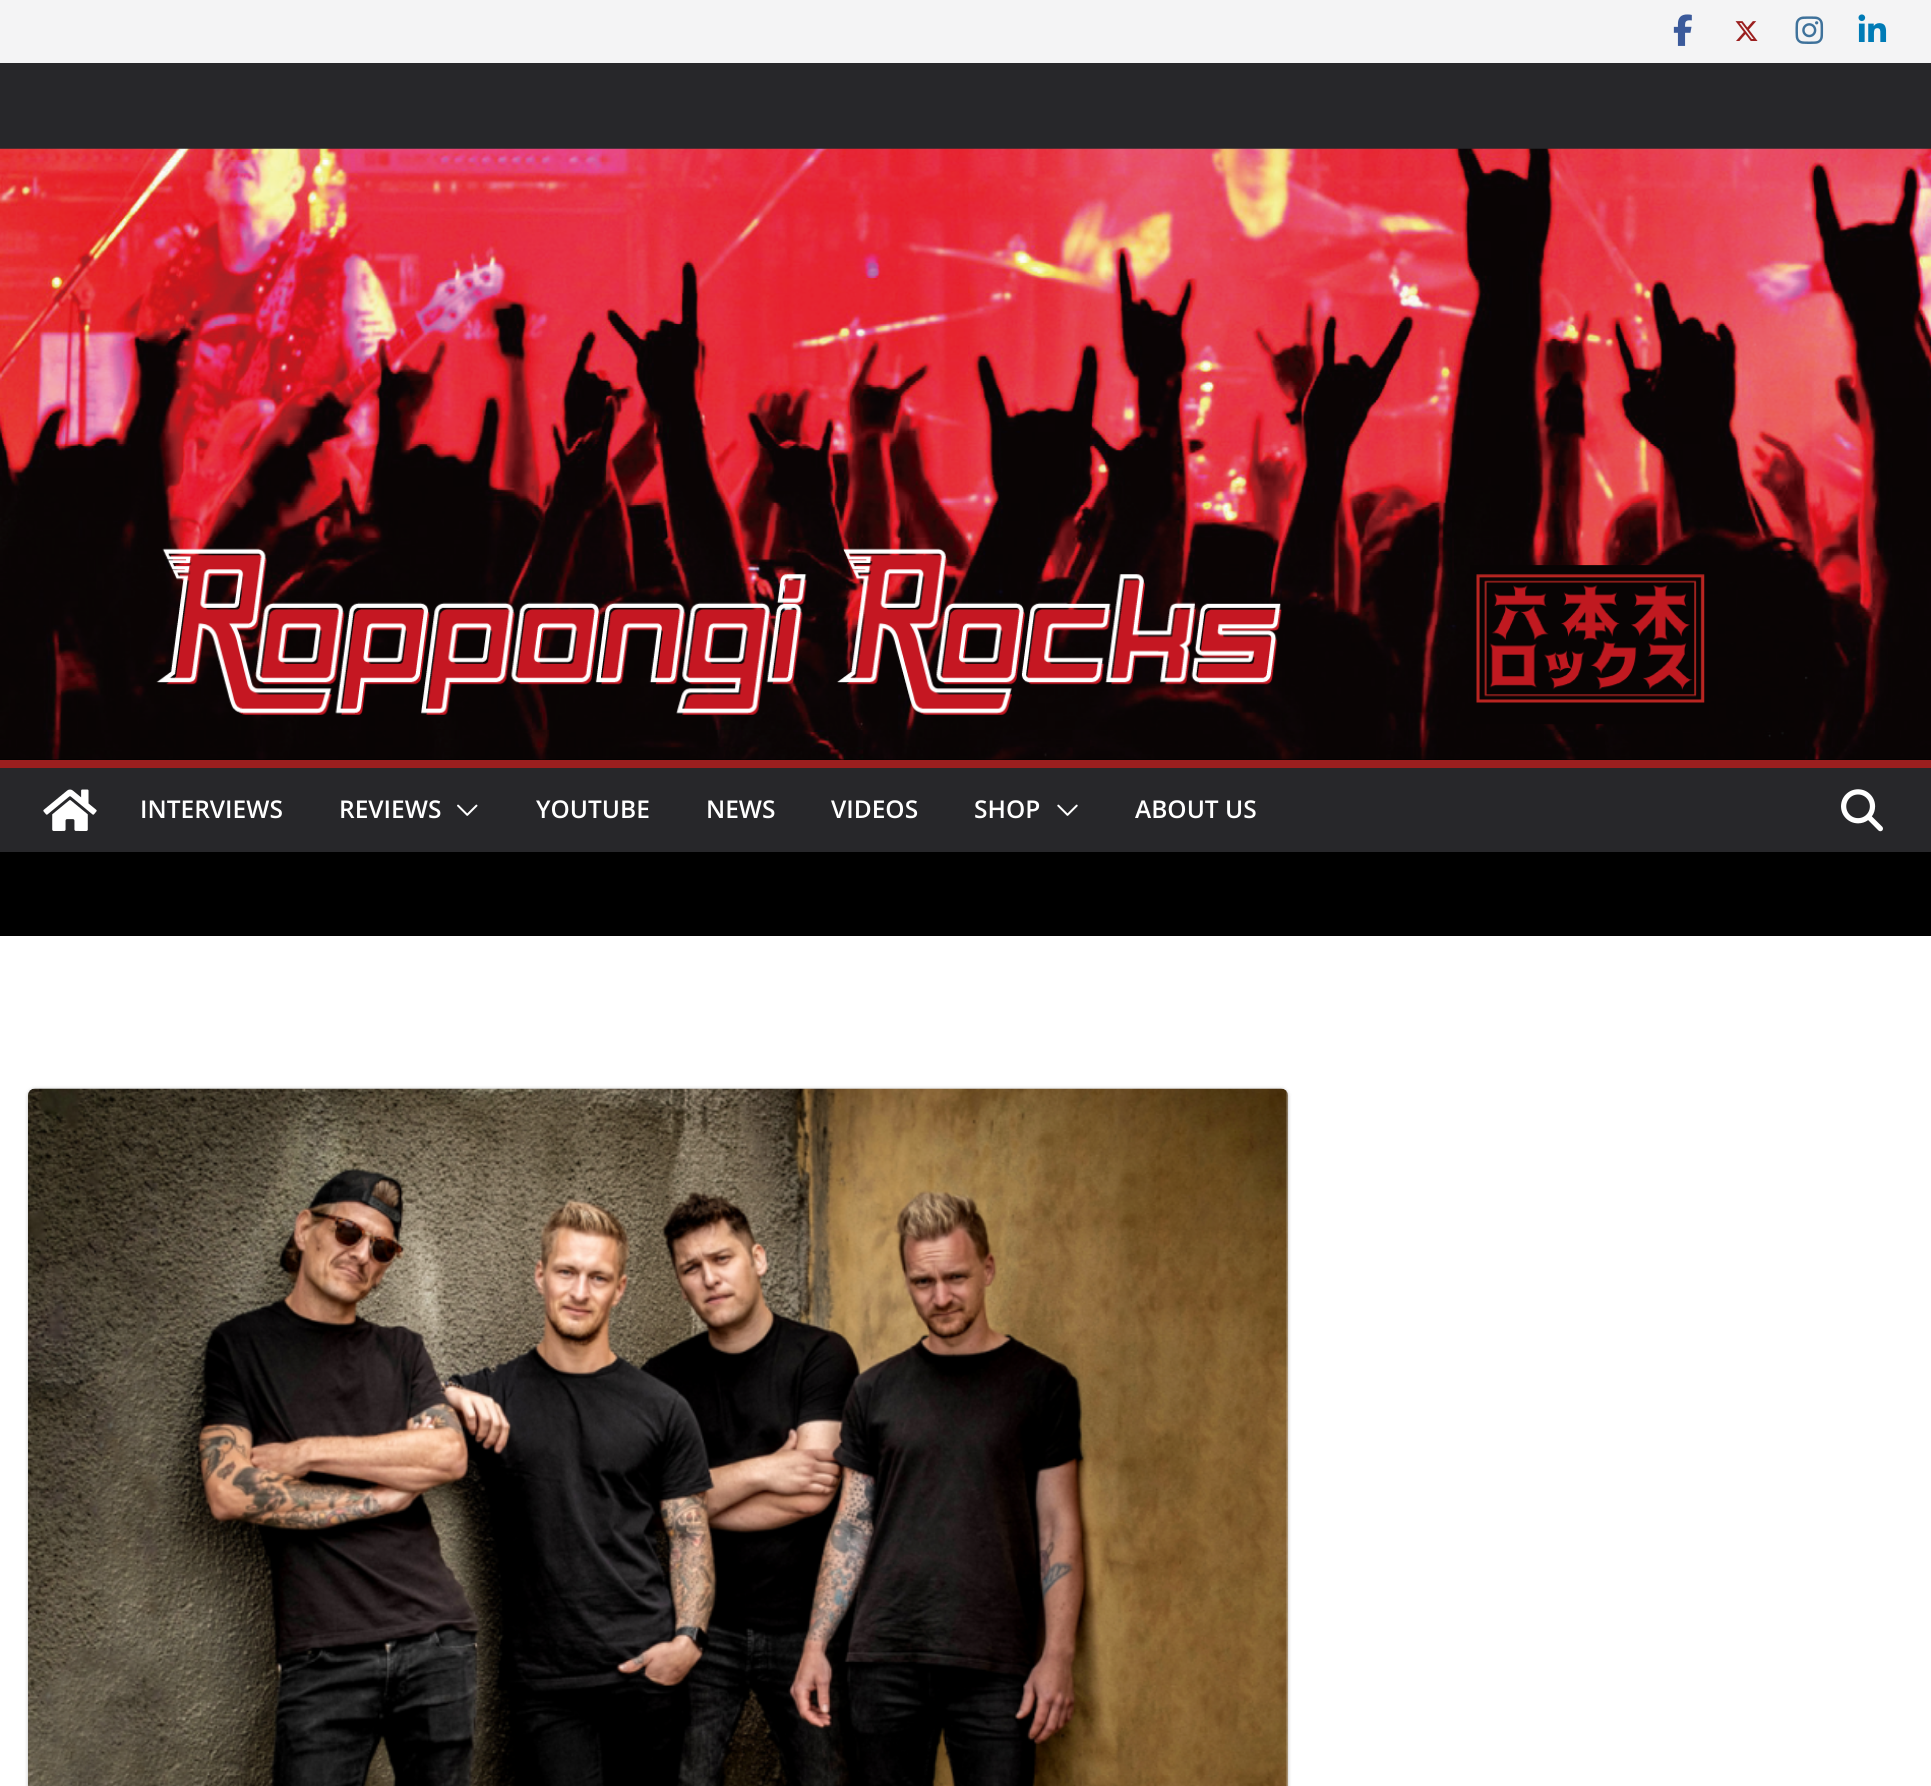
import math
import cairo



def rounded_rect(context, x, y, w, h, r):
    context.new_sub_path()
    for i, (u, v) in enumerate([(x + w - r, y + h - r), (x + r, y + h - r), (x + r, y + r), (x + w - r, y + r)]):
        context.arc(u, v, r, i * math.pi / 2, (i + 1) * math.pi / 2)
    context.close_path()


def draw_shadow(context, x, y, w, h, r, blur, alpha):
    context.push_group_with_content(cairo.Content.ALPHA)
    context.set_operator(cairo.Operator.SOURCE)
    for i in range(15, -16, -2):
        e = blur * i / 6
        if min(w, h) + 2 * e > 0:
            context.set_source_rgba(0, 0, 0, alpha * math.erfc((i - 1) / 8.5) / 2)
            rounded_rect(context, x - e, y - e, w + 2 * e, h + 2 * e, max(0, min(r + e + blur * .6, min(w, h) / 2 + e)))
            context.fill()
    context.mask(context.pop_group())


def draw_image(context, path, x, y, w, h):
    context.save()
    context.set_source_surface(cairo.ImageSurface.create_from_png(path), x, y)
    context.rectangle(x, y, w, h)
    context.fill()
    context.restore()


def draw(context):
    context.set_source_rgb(0, 0, 0)
    context.paint()
    context.set_source_rgb(244 / 255, 244 / 255, 245 / 255)
    context.rectangle(0, 0, 1931, 63)
    context.fill()
    context.set_source_rgb(39 / 255, 39 / 255, 42 / 255)
    context.rectangle(0, 63, 1931, 86)
    context.fill()
    draw_image(context, "images/1.png", 1673, 14, 19, 32)
    draw_image(context, "images/2.png", 1735, 21, 23, 20)
    draw_image(context, "images/3.png", 1795, 16, 29, 28)
    draw_image(context, "images/4.png", 1858, 14, 29, 28)
    draw_image(context, "images/5.png", 0, 148, 1931, 612)
    context.set_source_rgb(155 / 255, 31 / 255, 31 / 255)
    context.rectangle(0, 760, 1931, 8)
    context.fill()
    context.set_source_rgb(39 / 255, 39 / 255, 42 / 255)
    context.rectangle(0, 768, 1931, 84)
    context.fill()
    draw_image(context, "images/6.png", 43, 789, 54, 42)
    draw_image(context, "images/7.png", 457, 804, 21, 12)
    draw_image(context, "images/8.png", 1057, 804, 21, 12)
    draw_image(context, "images/9.png", 1841, 789, 42, 43)
    context.set_source_rgb(1, 1, 1)
    context.rectangle(0, 936, 1931, 850)
    context.fill()
    context.set_source_rgb(0, 0, 0)
    draw_shadow(context, 28, 1089, 1260, 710, 7, 2, 0.24)
    draw_image(context, "images/10.png", 28, 1088, 1260, 698)
    context.select_font_face("Open Sans SemiBold")
    context.set_font_size(24.5)
    context.set_source_rgb(1, 1, 1)
    context.move_to(140, 818)
    context.show_text("INTERVIEWS")
    context.move_to(339, 818)
    context.show_text("REVIEWS")
    context.move_to(536, 818)
    context.show_text("YOUTUBE")
    context.move_to(706, 818)
    context.show_text("NEWS")
    context.move_to(831, 818)
    context.show_text("VIDEOS")
    context.move_to(974, 818)
    context.show_text("SHOP")
    context.move_to(1135, 818)
    context.show_text("ABOUT US")


surface = cairo.ImageSurface(cairo.Format.RGB24, 1931, 1786)
context = cairo.Context(surface)
options = cairo.FontOptions()
options.set_hint_metrics(cairo.HintMetrics.OFF)
options.set_hint_style(cairo.HintStyle.NONE)
context.set_font_options(options)
context.set_miter_limit(4)
draw(context)
surface.write_to_png("out.png")
